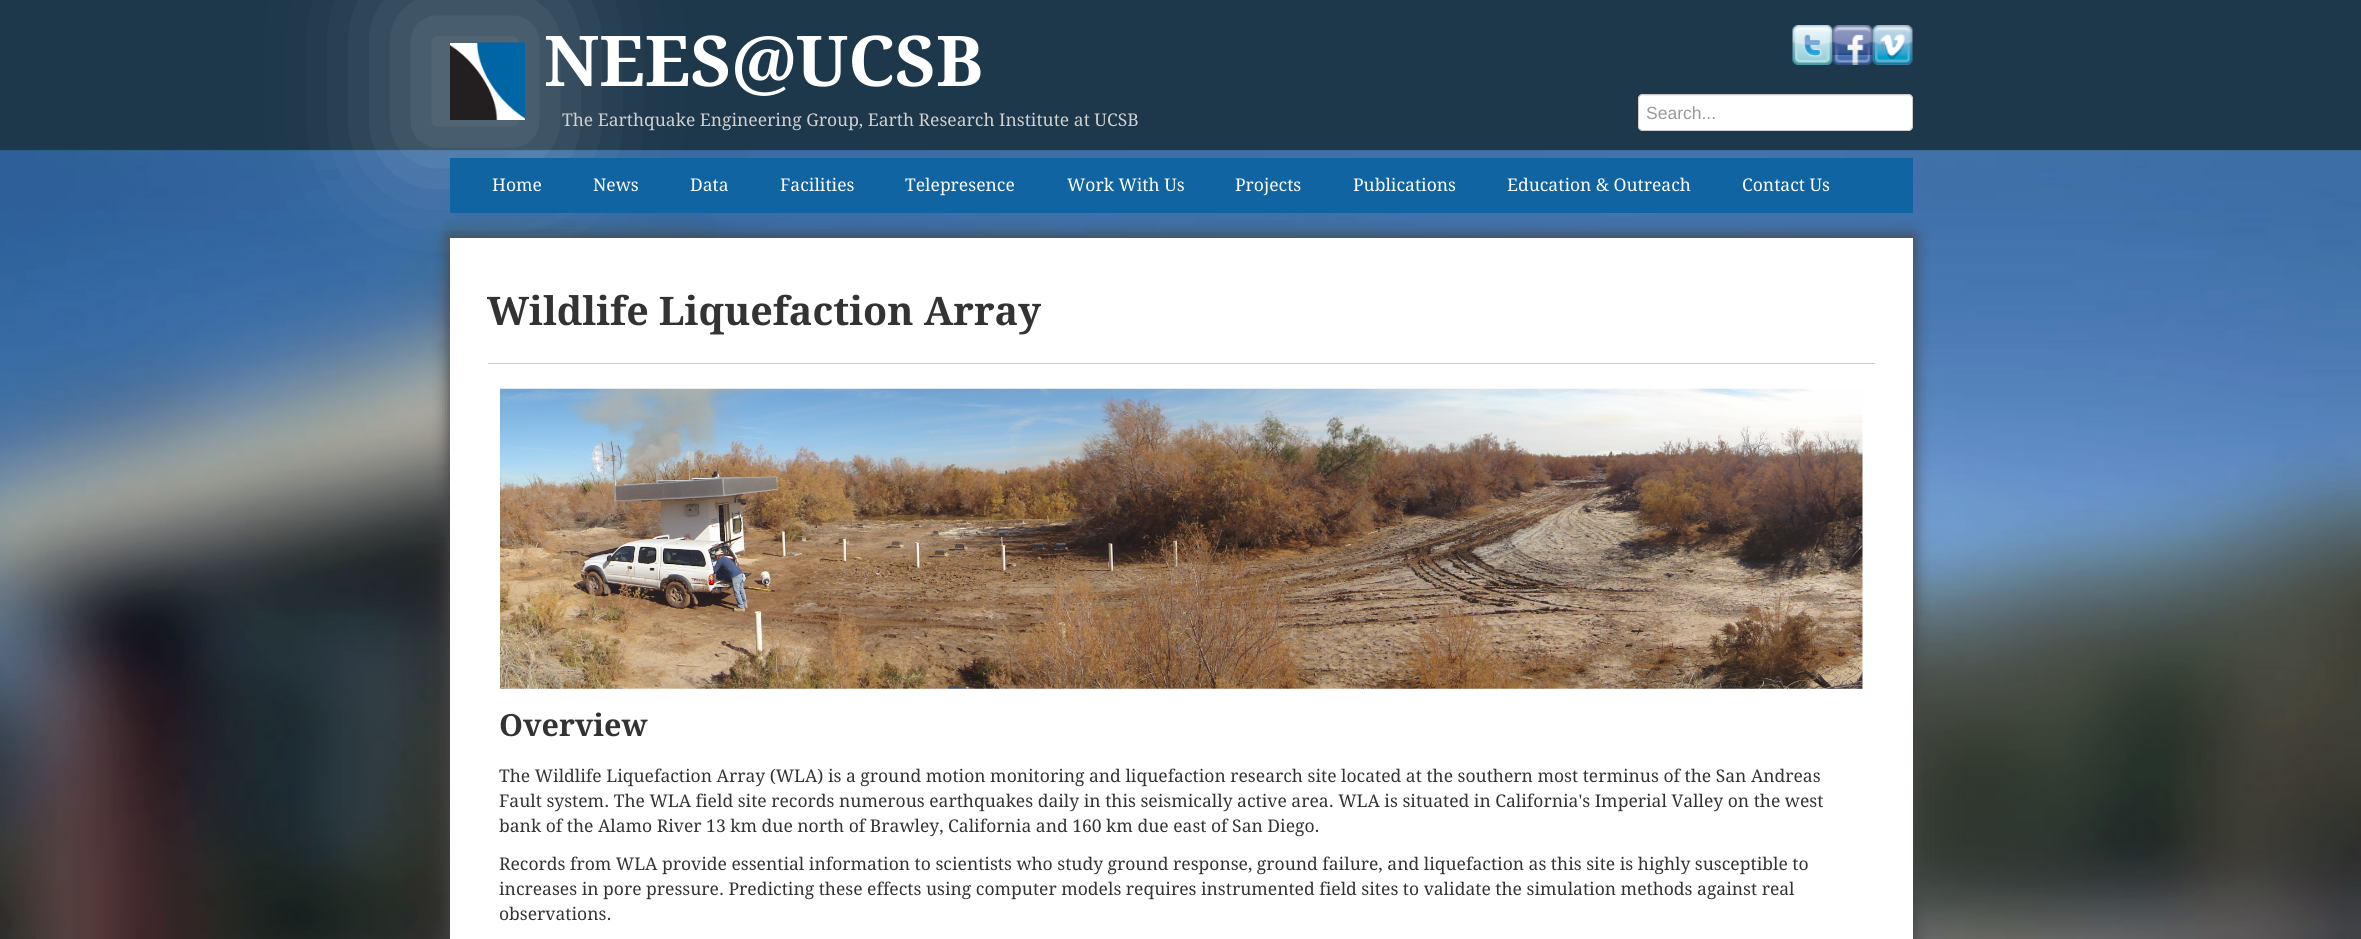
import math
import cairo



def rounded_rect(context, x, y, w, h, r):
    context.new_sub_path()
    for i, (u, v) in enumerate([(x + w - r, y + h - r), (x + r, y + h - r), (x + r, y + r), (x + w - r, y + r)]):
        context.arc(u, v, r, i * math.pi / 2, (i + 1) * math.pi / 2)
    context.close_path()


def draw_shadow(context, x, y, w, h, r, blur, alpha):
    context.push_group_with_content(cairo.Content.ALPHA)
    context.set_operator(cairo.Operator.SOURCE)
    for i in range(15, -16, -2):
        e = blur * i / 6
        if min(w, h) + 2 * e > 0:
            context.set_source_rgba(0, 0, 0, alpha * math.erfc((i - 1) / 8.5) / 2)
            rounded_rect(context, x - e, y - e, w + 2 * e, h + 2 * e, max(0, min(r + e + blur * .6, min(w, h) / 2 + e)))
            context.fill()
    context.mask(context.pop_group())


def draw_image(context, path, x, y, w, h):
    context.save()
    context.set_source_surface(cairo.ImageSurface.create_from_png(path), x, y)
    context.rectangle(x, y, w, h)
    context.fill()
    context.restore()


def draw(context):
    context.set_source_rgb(29 / 255, 55 / 255, 75 / 255)
    context.paint()
    draw_image(context, "images/1.png", 0, 149, 2361, 790)
    context.set_source_rgb(68 / 255, 68 / 255, 68 / 255)
    draw_shadow(context, 449, 236, 1465, 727, 0, 8, 1)
    context.set_source_rgb(1, 1, 1)
    context.rectangle(450, 238, 1463, 701)
    context.fill()
    context.set_source_rgb(1, 1, 1)
    draw_shadow(context, 400, 5, 150, 153, 0, 62.5, 0.3)
    context.set_source_rgb(1, 1, 1)
    context.rectangle(450, 43, 75, 77)
    context.fill()
    draw_image(context, "images/2.png", 450, 42, 75, 78)
    draw_image(context, "images/3.png", 1792, 25, 41, 40)
    draw_image(context, "images/4.png", 1832, 25, 41, 40)
    draw_image(context, "images/5.png", 1872, 25, 41, 40)
    rounded_rect(context, 1638, 94, 275, 37, 5)
    context.fill()
    context.set_source_rgb(236 / 255, 236 / 255, 236 / 255)
    context.new_path()
    context.move_to(1642, 96)
    context.line_to(1908, 96)
    context.curve_to(1910, 96, 1911, 98, 1911, 100)
    context.curve_to(1911, 97, 1910, 95, 1907, 95)
    context.line_to(1643, 95)
    context.curve_to(1640, 95, 1639, 97, 1639, 100)
    context.curve_to(1639, 98, 1640, 96, 1642, 96)
    context.close_path()
    context.fill()
    rounded_rect(context, 1638.5, 94.5, 274, 36, 4.5)
    context.set_source_rgb(204 / 255, 204 / 255, 204 / 255)
    context.set_line_width(1)
    context.stroke()
    context.set_source_rgb(17 / 255, 100 / 255, 162 / 255)
    context.rectangle(450, 158, 1463, 55)
    context.fill()
    context.set_source_rgb(204 / 255, 204 / 255, 204 / 255)
    context.rectangle(488, 363, 1387, 1)
    context.fill()
    draw_image(context, "images/6.png", 500, 388, 1363, 301)
    context.select_font_face("Droid Serif", cairo.FontSlant.NORMAL, cairo.FontWeight.BOLD)
    context.set_font_size(70)
    context.set_source_rgb(1, 1, 1)
    context.move_to(544, 86)
    context.show_text("NEES@UCSB")
    context.select_font_face("Droid Serif")
    context.set_font_size(17.5)
    context.set_source_rgb(208 / 255, 208 / 255, 208 / 255)
    context.move_to(562, 126)
    context.show_text("The Earthquake Engineering Group, Earth Research Institute at UCSB")
    context.select_font_face("Liberation Sans")
    context.set_source_rgb(153 / 255, 153 / 255, 153 / 255)
    context.move_to(1646, 119)
    context.show_text("Search...")
    context.select_font_face("Droid Serif")
    context.set_source_rgb(1, 1, 1)
    context.move_to(492, 191)
    context.show_text("Home")
    context.move_to(593, 191)
    context.show_text("News")
    context.move_to(690, 191)
    context.show_text("Data")
    context.move_to(780, 191)
    context.show_text("Facilities")
    context.move_to(905, 191)
    context.show_text("Telepresence")
    context.move_to(1067, 191)
    context.show_text("Work With Us")
    context.move_to(1235, 191)
    context.show_text("Projects")
    context.move_to(1353, 191)
    context.show_text("Publications")
    context.move_to(1507, 191)
    context.show_text("Education & Outreach")
    context.move_to(1742, 191)
    context.show_text("Contact Us")
    context.select_font_face("Droid Serif", cairo.FontSlant.NORMAL, cairo.FontWeight.BOLD)
    context.set_font_size(39.4)
    context.set_source_rgb(51 / 255, 51 / 255, 51 / 255)
    context.move_to(487, 325)
    context.show_text("Wildlife Liquefaction Array")
    context.set_font_size(30.5)
    context.move_to(499, 736)
    context.show_text("Overview")
    context.select_font_face("Droid Serif")
    context.set_font_size(17.5)
    context.move_to(499, 782)
    context.show_text("The Wildlife Liquefaction Array (WLA) is a ground motion monitoring and liquefaction research site located at the southern most terminus of the San Andreas")
    context.move_to(499, 807)
    context.show_text("Fault system. The WLA field site records numerous earthquakes daily in this seismically active area. WLA is situated in California's Imperial Valley on the west")
    context.move_to(499, 832)
    context.show_text("bank of the Alamo River 13 km due north of Brawley, California and 160 km due east of San Diego.")
    context.move_to(499, 870)
    context.show_text("Records from WLA provide essential information to scientists who study ground response, ground failure, and liquefaction as this site is highly susceptible to")
    context.move_to(499, 895)
    context.show_text("increases in pore pressure. Predicting these effects using computer models requires instrumented field sites to validate the simulation methods against real")
    context.move_to(499, 920)
    context.show_text("observations.")


surface = cairo.ImageSurface(cairo.Format.RGB24, 2361, 939)
context = cairo.Context(surface)
options = cairo.FontOptions()
options.set_hint_metrics(cairo.HintMetrics.OFF)
options.set_hint_style(cairo.HintStyle.NONE)
context.set_font_options(options)
context.set_miter_limit(4)
draw(context)
surface.write_to_png("out.png")
